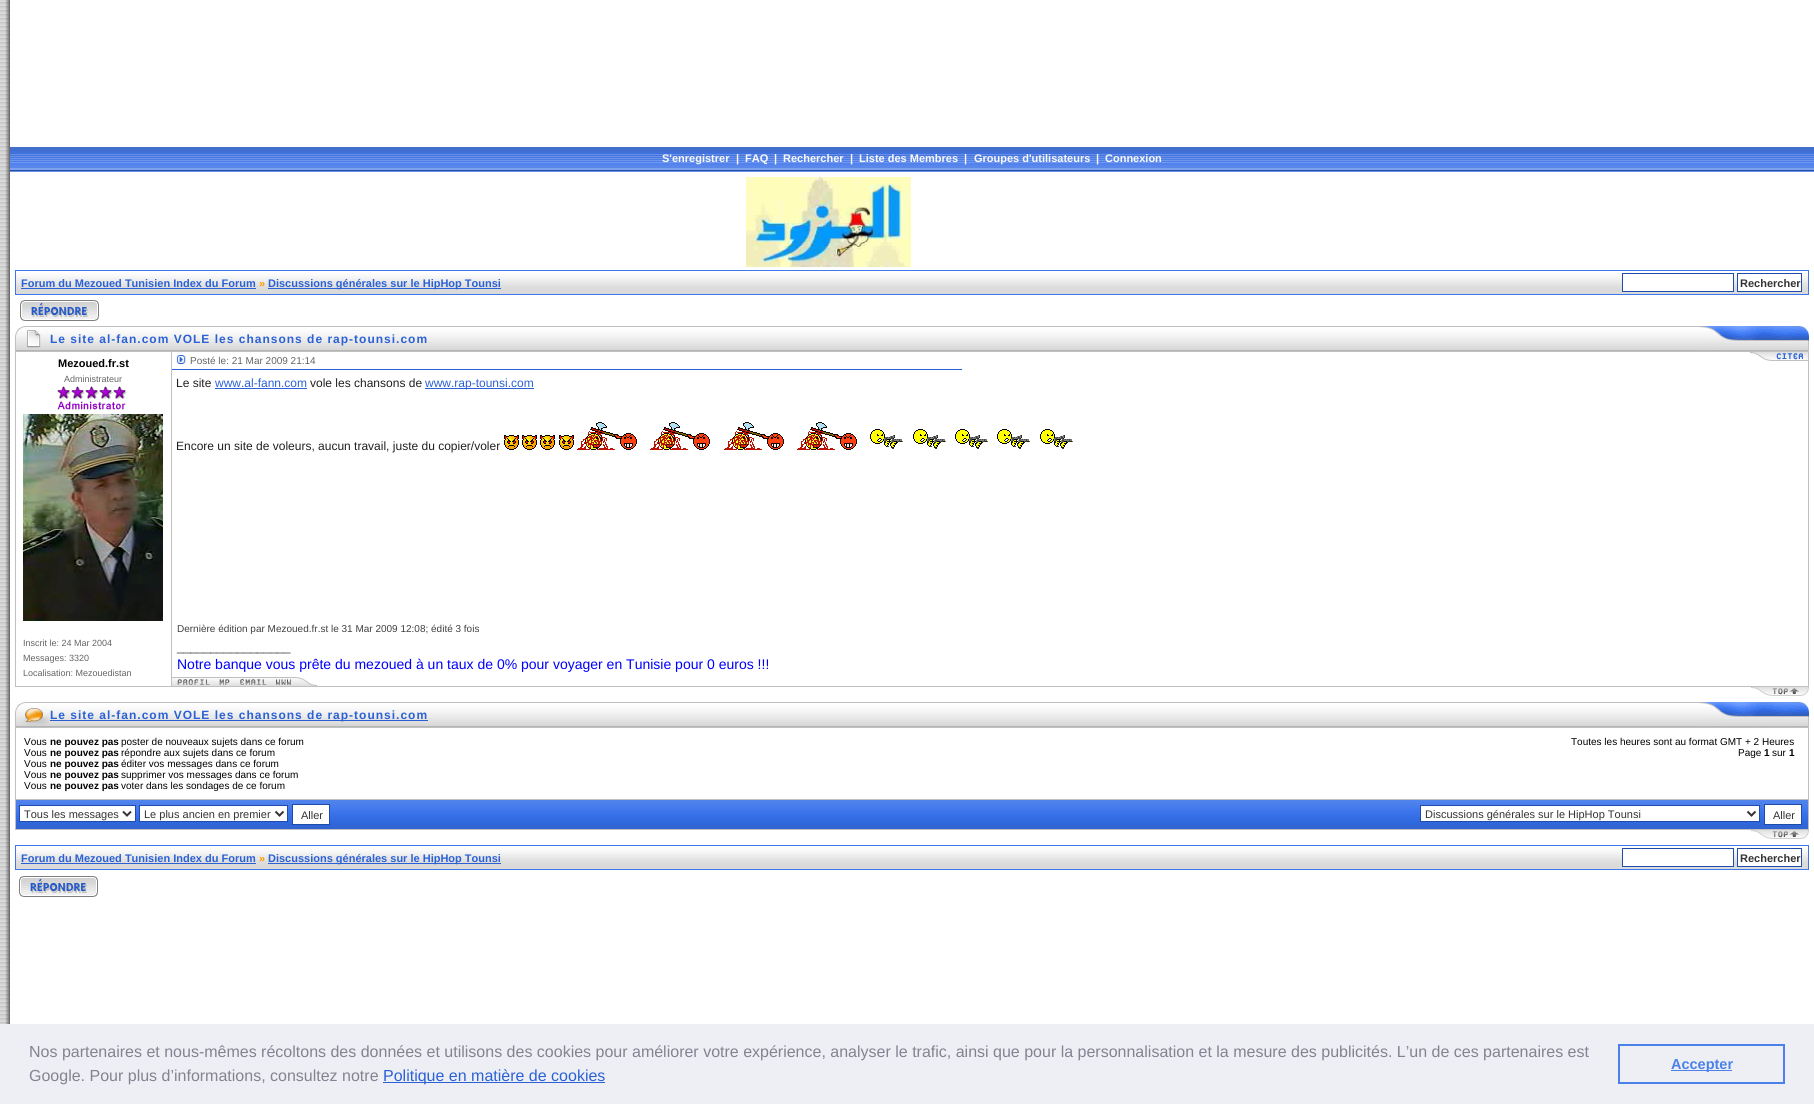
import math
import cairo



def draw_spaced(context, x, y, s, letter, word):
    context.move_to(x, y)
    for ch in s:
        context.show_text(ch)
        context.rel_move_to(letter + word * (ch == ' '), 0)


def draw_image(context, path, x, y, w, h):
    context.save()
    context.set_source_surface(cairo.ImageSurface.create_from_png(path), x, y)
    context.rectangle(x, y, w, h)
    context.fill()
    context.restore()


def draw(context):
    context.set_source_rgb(1, 1, 1)
    context.paint()
    draw_image(context, "images/1.png", 0, 0, 10, 1024)
    draw_image(context, "images/2.png", 10, 147, 1804, 25)
    draw_image(context, "images/3.png", 746, 177, 165, 90)
    draw_image(context, "images/4.png", 16, 271, 1792, 23)
    context.rectangle(15.5, 270.5, 1793, 24)
    context.set_source_rgb(61 / 255, 118 / 255, 237 / 255)
    context.set_line_width(1)
    context.stroke()
    context.set_source_rgb(43 / 255, 97 / 255, 213 / 255)
    context.rectangle(21, 288, 235, 1)
    context.fill()
    context.rectangle(268, 288, 233, 1)
    context.fill()
    context.set_source_rgb(1, 1, 1)
    context.rectangle(1622.5, 273.5, 111, 18)
    context.fill_preserve()
    context.set_source_rgb(31 / 255, 76 / 255, 170 / 255)
    context.stroke()
    context.set_source_rgb(1, 1, 1)
    context.rectangle(1737.5, 273.5, 64, 18)
    context.fill_preserve()
    context.set_source_rgb(31 / 255, 76 / 255, 170 / 255)
    context.stroke()
    draw_image(context, "images/5.png", 20, 300, 79, 21)
    draw_image(context, "images/6.png", 41, 326, 1658, 25)
    draw_image(context, "images/7.png", 15, 326, 26, 25)
    draw_image(context, "images/8.png", 1699, 326, 110, 25)
    context.rectangle(15.5, 351.5, 1793, 335)
    context.set_source_rgb(192 / 255, 192 / 255, 192 / 255)
    context.stroke()
    draw_image(context, "images/9.png", 57, 386, 70, 24)
    draw_image(context, "images/10.png", 23, 414, 140, 207)
    context.rectangle(171, 352, 1, 334)
    context.fill()
    draw_image(context, "images/11.png", 176, 355, 10, 9)
    draw_image(context, "images/12.png", 1748, 352, 23, 9)
    draw_image(context, "images/13.png", 1771, 352, 37, 9)
    draw_image(context, "images/14.png", 1776, 353, 27, 7)
    context.set_source_rgb(39 / 255, 96 / 255, 215 / 255)
    context.rectangle(172, 369, 790, 1)
    context.fill()
    context.set_source_rgb(43 / 255, 97 / 255, 213 / 255)
    context.rectangle(215, 388, 92, 1)
    context.fill()
    context.rectangle(425, 388, 109, 1)
    context.fill()
    draw_image(context, "images/15.png", 504, 435, 15, 15)
    draw_image(context, "images/15.png", 522, 435, 15, 15)
    draw_image(context, "images/15.png", 540, 435, 15, 15)
    draw_image(context, "images/15.png", 559, 435, 15, 15)
    draw_image(context, "images/16.png", 577, 422, 60, 28)
    draw_image(context, "images/16.png", 650, 422, 60, 28)
    draw_image(context, "images/16.png", 724, 422, 60, 28)
    draw_image(context, "images/16.png", 797, 422, 60, 28)
    draw_image(context, "images/17.png", 870, 429, 33, 20)
    draw_image(context, "images/17.png", 913, 429, 33, 20)
    draw_image(context, "images/17.png", 955, 429, 33, 20)
    draw_image(context, "images/17.png", 997, 429, 33, 20)
    draw_image(context, "images/17.png", 1040, 429, 33, 20)
    draw_image(context, "images/18.png", 172, 677, 124, 9)
    draw_image(context, "images/19.png", 177, 679, 33, 6)
    draw_image(context, "images/20.png", 219, 679, 11, 6)
    draw_image(context, "images/21.png", 240, 679, 27, 6)
    draw_image(context, "images/22.png", 276, 679, 15, 6)
    draw_image(context, "images/23.png", 296, 677, 22, 9)
    draw_image(context, "images/24.png", 1750, 687, 59, 9)
    draw_image(context, "images/25.png", 50, 702, 1649, 25)
    draw_image(context, "images/26.png", 15, 702, 35, 25)
    context.set_source_rgb(41 / 255, 95 / 255, 211 / 255)
    context.rectangle(50, 720, 378, 1)
    context.fill()
    draw_image(context, "images/8.png", 1699, 702, 110, 25)
    context.set_source_rgb(192 / 255, 192 / 255, 192 / 255)
    context.rectangle(15, 727, 1794, 103)
    context.fill()
    context.set_source_rgb(1, 1, 1)
    context.rectangle(16, 728, 1792, 71)
    context.fill()
    draw_image(context, "images/27.png", 16, 800, 1792, 29)
    context.rectangle(19.5, 805.5, 116, 16)
    context.fill_preserve()
    context.set_source_rgb(31 / 255, 76 / 255, 170 / 255)
    context.stroke()
    context.new_path()
    context.move_to(123, 811.5)
    context.line_to(127, 815.5)
    context.line_to(131, 811.5)
    context.set_source_rgb(51 / 255, 51 / 255, 51 / 255)
    context.set_line_width(2)
    context.stroke()
    context.set_source_rgb(1, 1, 1)
    context.rectangle(139.5, 805.5, 148, 16)
    context.fill_preserve()
    context.set_source_rgb(31 / 255, 76 / 255, 170 / 255)
    context.set_line_width(1)
    context.stroke()
    context.new_path()
    context.move_to(275.5, 811.5)
    context.line_to(279.5, 815.5)
    context.line_to(283.5, 811.5)
    context.set_source_rgb(51 / 255, 51 / 255, 51 / 255)
    context.set_line_width(2)
    context.stroke()
    context.set_source_rgb(1, 1, 1)
    context.rectangle(292.5, 804.5, 37, 20)
    context.fill_preserve()
    context.set_source_rgb(31 / 255, 76 / 255, 170 / 255)
    context.set_line_width(1)
    context.stroke()
    context.set_source_rgb(1, 1, 1)
    context.rectangle(1420.5, 805.5, 339, 16)
    context.fill_preserve()
    context.set_source_rgb(31 / 255, 76 / 255, 170 / 255)
    context.stroke()
    context.new_path()
    context.move_to(1747.5, 811.5)
    context.line_to(1751.5, 815.5)
    context.line_to(1755.5, 811.5)
    context.set_source_rgb(51 / 255, 51 / 255, 51 / 255)
    context.set_line_width(2)
    context.stroke()
    context.set_source_rgb(1, 1, 1)
    context.rectangle(1764.5, 804.5, 37, 20)
    context.fill_preserve()
    context.set_source_rgb(31 / 255, 76 / 255, 170 / 255)
    context.set_line_width(1)
    context.stroke()
    draw_image(context, "images/24.png", 1750, 830, 59, 9)
    draw_image(context, "images/4.png", 16, 846, 1792, 23)
    context.rectangle(15.5, 845.5, 1793, 24)
    context.set_source_rgb(61 / 255, 118 / 255, 237 / 255)
    context.stroke()
    context.set_source_rgb(43 / 255, 97 / 255, 213 / 255)
    context.rectangle(21, 863, 235, 1)
    context.fill()
    context.rectangle(268, 863, 233, 1)
    context.fill()
    context.set_source_rgb(1, 1, 1)
    context.rectangle(1622.5, 848.5, 111, 18)
    context.fill_preserve()
    context.set_source_rgb(31 / 255, 76 / 255, 170 / 255)
    context.stroke()
    context.set_source_rgb(1, 1, 1)
    context.rectangle(1737.5, 848.5, 64, 18)
    context.fill_preserve()
    context.set_source_rgb(31 / 255, 76 / 255, 170 / 255)
    context.stroke()
    draw_image(context, "images/5.png", 19, 876, 79, 21)
    context.set_source_rgb(237 / 255, 239 / 255, 245 / 255)
    context.rectangle(0, 1024, 1814, 80)
    context.fill()
    context.set_source_rgb(43 / 255, 97 / 255, 213 / 255)
    context.rectangle(383, 1082, 222, 1)
    context.fill()
    context.rectangle(1619, 1045, 165, 38)
    context.set_source_rgb(75 / 255, 129 / 255, 232 / 255)
    context.set_line_width(2)
    context.stroke()
    context.rectangle(1671, 1070, 61, 1)
    context.fill()
    context.select_font_face("Liberation Sans", cairo.FontSlant.NORMAL, cairo.FontWeight.BOLD)
    context.set_font_size(11)
    context.set_source_rgb(250 / 255, 250 / 255, 250 / 255)
    context.move_to(662, 162)
    context.show_text("S'enregistrer")
    context.move_to(736, 162)
    context.show_text("|")
    context.move_to(745, 162)
    context.show_text("FAQ")
    context.move_to(774, 162)
    context.show_text("|")
    context.move_to(783, 162)
    context.show_text("Rechercher")
    context.move_to(850, 162)
    context.show_text("|")
    context.move_to(859, 162)
    context.show_text("Liste des Membres")
    context.move_to(964, 162)
    context.show_text("|")
    context.move_to(974, 162)
    context.show_text("Groupes d'utilisateurs")
    context.move_to(1096, 162)
    context.show_text("|")
    context.move_to(1105, 162)
    context.show_text("Connexion")
    context.set_source_rgb(43 / 255, 97 / 255, 213 / 255)
    context.move_to(21, 287)
    context.show_text("Forum du Mezoued Tunisien Index du Forum")
    context.set_source_rgb(1, 156 / 255, 0)
    context.move_to(259, 287)
    context.show_text("»")
    context.set_source_rgb(43 / 255, 97 / 255, 213 / 255)
    context.move_to(268, 287)
    context.show_text("Discussions générales sur le HipHop Tounsi")
    context.set_source_rgb(51 / 255, 51 / 255, 51 / 255)
    context.move_to(1740, 287)
    context.show_text("Rechercher")
    context.set_font_size(12)
    context.set_source_rgb(43 / 255, 97 / 255, 213 / 255)
    draw_spaced(context, 50, 343, "Le site al-fan.com VOLE les chansons de rap-tounsi.com", 1, 0)
    context.set_font_size(11)
    context.set_source_rgb(0, 0, 0)
    context.move_to(58, 367)
    context.show_text("Mezoued.fr.st")
    context.select_font_face("Liberation Sans")
    context.set_font_size(9)
    context.set_source_rgb(100 / 255, 100 / 255, 100 / 255)
    context.move_to(64, 382)
    context.show_text("Administrateur")
    context.move_to(23, 646)
    context.show_text("Inscrit le: 24 Mar 2004")
    context.move_to(23, 661)
    context.show_text("Messages: 3320")
    context.move_to(23, 676)
    context.show_text("Localisation: Mezouedistan")
    context.set_font_size(10)
    context.move_to(190, 364)
    context.show_text("Posté le: 21 Mar 2009 21:14")
    context.set_font_size(12)
    context.set_source_rgb(32 / 255, 32 / 255, 32 / 255)
    context.move_to(176, 387)
    context.show_text("Le site")
    context.set_source_rgb(43 / 255, 97 / 255, 213 / 255)
    context.move_to(215, 387)
    context.show_text("www.al-fann.com")
    context.set_source_rgb(32 / 255, 32 / 255, 32 / 255)
    context.move_to(310, 387)
    context.show_text("vole les chansons de")
    context.set_source_rgb(43 / 255, 97 / 255, 213 / 255)
    context.move_to(425, 387)
    context.show_text("www.rap-tounsi.com")
    context.set_source_rgb(32 / 255, 32 / 255, 32 / 255)
    context.move_to(176, 450)
    context.show_text("Encore un site de voleurs, aucun travail, juste du copier/voler")
    context.set_font_size(10)
    context.set_source_rgb(64 / 255, 64 / 255, 64 / 255)
    context.move_to(177, 632)
    context.show_text("Dernière édition par Mezoued.fr.st le 31 Mar 2009 12:08; édité 3 fois")
    context.set_font_size(12)
    context.move_to(177, 651)
    context.show_text("_________________")
    context.set_font_size(14)
    context.set_source_rgb(0, 0, 1)
    context.move_to(177, 669)
    context.show_text("Notre banque vous prête du mezoued à un taux de 0% pour voyager en Tunisie pour 0 euros !!!")
    context.select_font_face("Liberation Sans", cairo.FontSlant.NORMAL, cairo.FontWeight.BOLD)
    context.set_font_size(12)
    context.set_source_rgb(43 / 255, 97 / 255, 213 / 255)
    draw_spaced(context, 50, 719, "Le site al-fan.com VOLE les chansons de rap-tounsi.com", 1, 0)
    context.select_font_face("Liberation Sans")
    context.set_font_size(10)
    context.set_source_rgb(0, 0, 0)
    context.move_to(24, 745)
    context.show_text("Vous")
    context.select_font_face("Liberation Sans", cairo.FontSlant.NORMAL, cairo.FontWeight.BOLD)
    context.move_to(50, 745)
    context.show_text("ne pouvez pas")
    context.select_font_face("Liberation Sans")
    context.move_to(121, 745)
    context.show_text("poster de nouveaux sujets dans ce forum")
    context.move_to(24, 756)
    context.show_text("Vous")
    context.select_font_face("Liberation Sans", cairo.FontSlant.NORMAL, cairo.FontWeight.BOLD)
    context.move_to(50, 756)
    context.show_text("ne pouvez pas")
    context.select_font_face("Liberation Sans")
    context.move_to(121, 756)
    context.show_text("répondre aux sujets dans ce forum")
    context.move_to(24, 767)
    context.show_text("Vous")
    context.select_font_face("Liberation Sans", cairo.FontSlant.NORMAL, cairo.FontWeight.BOLD)
    context.move_to(50, 767)
    context.show_text("ne pouvez pas")
    context.select_font_face("Liberation Sans")
    context.move_to(121, 767)
    context.show_text("éditer vos messages dans ce forum")
    context.move_to(24, 778)
    context.show_text("Vous")
    context.select_font_face("Liberation Sans", cairo.FontSlant.NORMAL, cairo.FontWeight.BOLD)
    context.move_to(50, 778)
    context.show_text("ne pouvez pas")
    context.select_font_face("Liberation Sans")
    context.move_to(121, 778)
    context.show_text("supprimer vos messages dans ce forum")
    context.move_to(24, 789)
    context.show_text("Vous")
    context.select_font_face("Liberation Sans", cairo.FontSlant.NORMAL, cairo.FontWeight.BOLD)
    context.move_to(50, 789)
    context.show_text("ne pouvez pas")
    context.select_font_face("Liberation Sans")
    context.move_to(121, 789)
    context.show_text("voter dans les sondages de ce forum")
    context.move_to(1571, 745)
    context.show_text("Toutes les heures sont au format GMT + 2 Heures")
    context.move_to(1738, 756)
    context.show_text("Page")
    context.select_font_face("Liberation Sans", cairo.FontSlant.NORMAL, cairo.FontWeight.BOLD)
    context.move_to(1764, 756)
    context.show_text("1")
    context.select_font_face("Liberation Sans")
    context.move_to(1772, 756)
    context.show_text("sur")
    context.select_font_face("Liberation Sans", cairo.FontSlant.NORMAL, cairo.FontWeight.BOLD)
    context.move_to(1789, 756)
    context.show_text("1")
    context.select_font_face("Liberation Sans")
    context.set_font_size(11)
    context.set_source_rgb(51 / 255, 51 / 255, 51 / 255)
    context.move_to(24, 818)
    context.show_text("Tous les messages")
    context.move_to(144, 818)
    context.show_text("Le plus ancien en premier")
    context.move_to(301, 819)
    context.show_text("Aller")
    context.move_to(1425, 818)
    context.show_text("Discussions générales sur le HipHop Tounsi")
    context.move_to(1773, 819)
    context.show_text("Aller")
    context.select_font_face("Liberation Sans", cairo.FontSlant.NORMAL, cairo.FontWeight.BOLD)
    context.set_source_rgb(43 / 255, 97 / 255, 213 / 255)
    context.move_to(21, 862)
    context.show_text("Forum du Mezoued Tunisien Index du Forum")
    context.set_source_rgb(1, 156 / 255, 0)
    context.move_to(259, 862)
    context.show_text("»")
    context.set_source_rgb(43 / 255, 97 / 255, 213 / 255)
    context.move_to(268, 862)
    context.show_text("Discussions générales sur le HipHop Tounsi")
    context.set_source_rgb(51 / 255, 51 / 255, 51 / 255)
    context.move_to(1740, 862)
    context.show_text("Rechercher")
    context.select_font_face("Liberation Sans")
    context.set_font_size(16)
    context.set_source_rgb(131 / 255, 131 / 255, 145 / 255)
    context.move_to(29, 1057)
    context.show_text("Nos partenaires et nous-mêmes récoltons des données et utilisons des cookies pour améliorer votre expérience, analyser le trafic, ainsi que pour la personnalisation et la mesure des publicités. L’un de ces partenaires est")
    context.move_to(29, 1081)
    context.show_text("Google. Pour plus d’informations, consultez notre")
    context.set_source_rgb(43 / 255, 97 / 255, 213 / 255)
    context.move_to(383, 1081)
    context.show_text("Politique en matière de cookies")
    context.select_font_face("Liberation Sans", cairo.FontSlant.NORMAL, cairo.FontWeight.BOLD)
    context.set_font_size(14.5)
    context.set_source_rgb(75 / 255, 129 / 255, 232 / 255)
    context.move_to(1671, 1069)
    context.show_text("Accepter")


surface = cairo.ImageSurface(cairo.Format.RGB24, 1814, 1104)
context = cairo.Context(surface)
options = cairo.FontOptions()
options.set_hint_metrics(cairo.HintMetrics.OFF)
options.set_hint_style(cairo.HintStyle.NONE)
context.set_font_options(options)
context.set_miter_limit(4)
draw(context)
surface.write_to_png("out.png")
